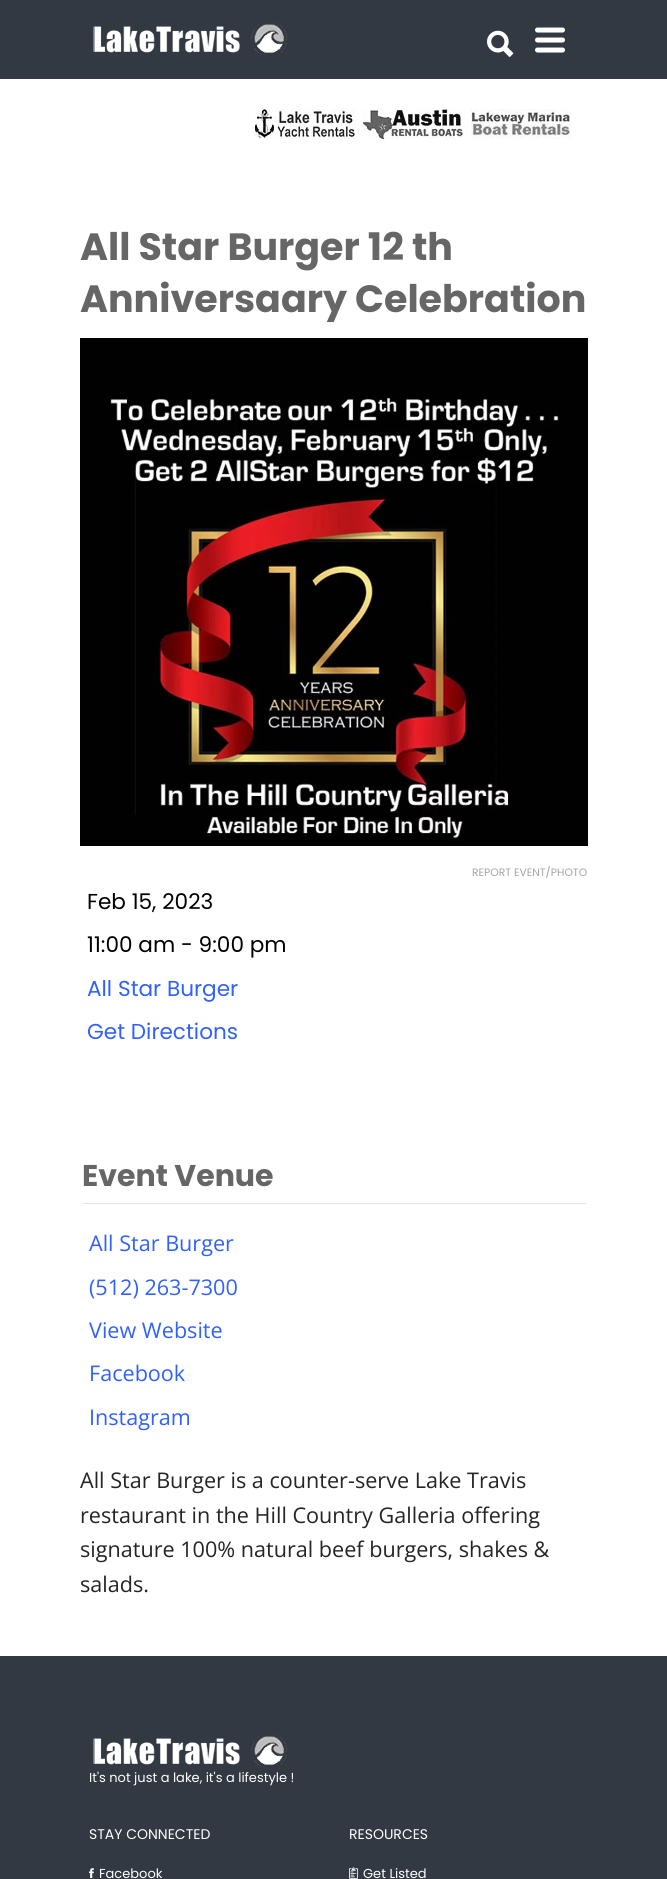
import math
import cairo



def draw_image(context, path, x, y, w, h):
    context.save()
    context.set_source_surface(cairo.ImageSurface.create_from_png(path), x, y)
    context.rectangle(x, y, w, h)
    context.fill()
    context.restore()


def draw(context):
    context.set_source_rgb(1, 1, 1)
    context.paint()
    context.set_source_rgb(51 / 255, 57 / 255, 67 / 255)
    context.rectangle(0, 0, 667, 79)
    context.fill()
    draw_image(context, "images/1.png", 93, 23, 194, 32)
    draw_image(context, "images/2.png", 487, 30, 27, 27)
    draw_image(context, "images/3.png", 535, 27, 30, 26)
    draw_image(context, "images/4.png", 255, 109, 100, 30)
    draw_image(context, "images/5.png", 363, 109, 100, 30)
    draw_image(context, "images/6.png", 471, 109, 100, 30)
    draw_image(context, "images/7.png", 80, 338, 508, 508)
    context.set_source_rgb(230 / 255, 230 / 255, 230 / 255)
    context.rectangle(82, 1203, 504, 1)
    context.fill()
    context.set_source_rgb(51 / 255, 57 / 255, 66 / 255)
    context.rectangle(0, 1656, 667, 223)
    context.fill()
    draw_image(context, "images/8.png", 93, 1735, 194, 32)
    draw_image(context, "images/9.png", 89, 1868, 5, 10)
    draw_image(context, "images/10.png", 349, 1867, 9, 12)
    context.select_font_face("Poppins", cairo.FontSlant.NORMAL, cairo.FontWeight.BOLD)
    context.set_font_size(38)
    context.set_source_rgb(102 / 255, 102 / 255, 102 / 255)
    context.move_to(80, 260)
    context.show_text("All Star Burger 12 th")
    context.move_to(80, 312)
    context.show_text("Anniversaary Celebration")
    context.select_font_face("Poppins")
    context.set_font_size(10.75)
    context.set_source_rgb(161 / 255, 165 / 255, 168 / 255)
    context.move_to(472, 876)
    context.show_text("REPORT EVENT/PHOTO")
    context.set_font_size(21.6)
    context.set_source_rgb(0, 0, 0)
    context.move_to(87, 909)
    context.show_text("Feb 15, 2023")
    context.move_to(87, 952)
    context.show_text("11:00 am - 9:00 pm")
    context.set_source_rgb(48 / 255, 97 / 255, 1)
    context.move_to(87, 996)
    context.show_text("All Star Burger")
    context.move_to(87, 1039)
    context.show_text("Get Directions")
    context.select_font_face("Poppins", cairo.FontSlant.NORMAL, cairo.FontWeight.BOLD)
    context.set_font_size(30)
    context.set_source_rgb(102 / 255, 102 / 255, 102 / 255)
    context.move_to(82, 1186)
    context.show_text("Event Venue")
    context.select_font_face("Open Sans")
    context.set_font_size(21.6)
    context.set_source_rgb(48 / 255, 97 / 255, 1)
    context.move_to(89, 1251)
    context.show_text("All Star Burger")
    context.move_to(89, 1295)
    context.show_text("(512) 263-7300")
    context.move_to(89, 1338)
    context.show_text("View Website")
    context.move_to(89, 1381)
    context.show_text("Facebook")
    context.move_to(89, 1425)
    context.show_text("Instagram")
    context.set_source_rgb(38 / 255, 36 / 255, 37 / 255)
    context.move_to(80, 1488)
    context.show_text("All Star Burger is a counter-serve Lake Travis")
    context.move_to(80, 1523)
    context.show_text("restaurant in the Hill Country Galleria offering")
    context.move_to(80, 1557)
    context.show_text("signature 100% natural beef burgers, shakes &")
    context.move_to(80, 1592)
    context.show_text("salads.")
    context.select_font_face("Poppins")
    context.set_font_size(13)
    context.set_source_rgb(1, 1, 1)
    context.move_to(89, 1782)
    context.show_text("It's not just a lake, it's a lifestyle !")
    context.set_font_size(14)
    context.move_to(89, 1839)
    context.show_text("STAY CONNECTED")
    context.set_font_size(13)
    context.move_to(99, 1878)
    context.show_text("Facebook")
    context.set_font_size(14)
    context.move_to(349, 1839)
    context.show_text("RESOURCES")
    context.set_font_size(13)
    context.move_to(363, 1878)
    context.show_text("Get Listed")


surface = cairo.ImageSurface(cairo.Format.RGB24, 667, 1879)
context = cairo.Context(surface)
options = cairo.FontOptions()
options.set_hint_metrics(cairo.HintMetrics.OFF)
options.set_hint_style(cairo.HintStyle.NONE)
context.set_font_options(options)
context.set_miter_limit(4)
draw(context)
surface.write_to_png("out.png")
